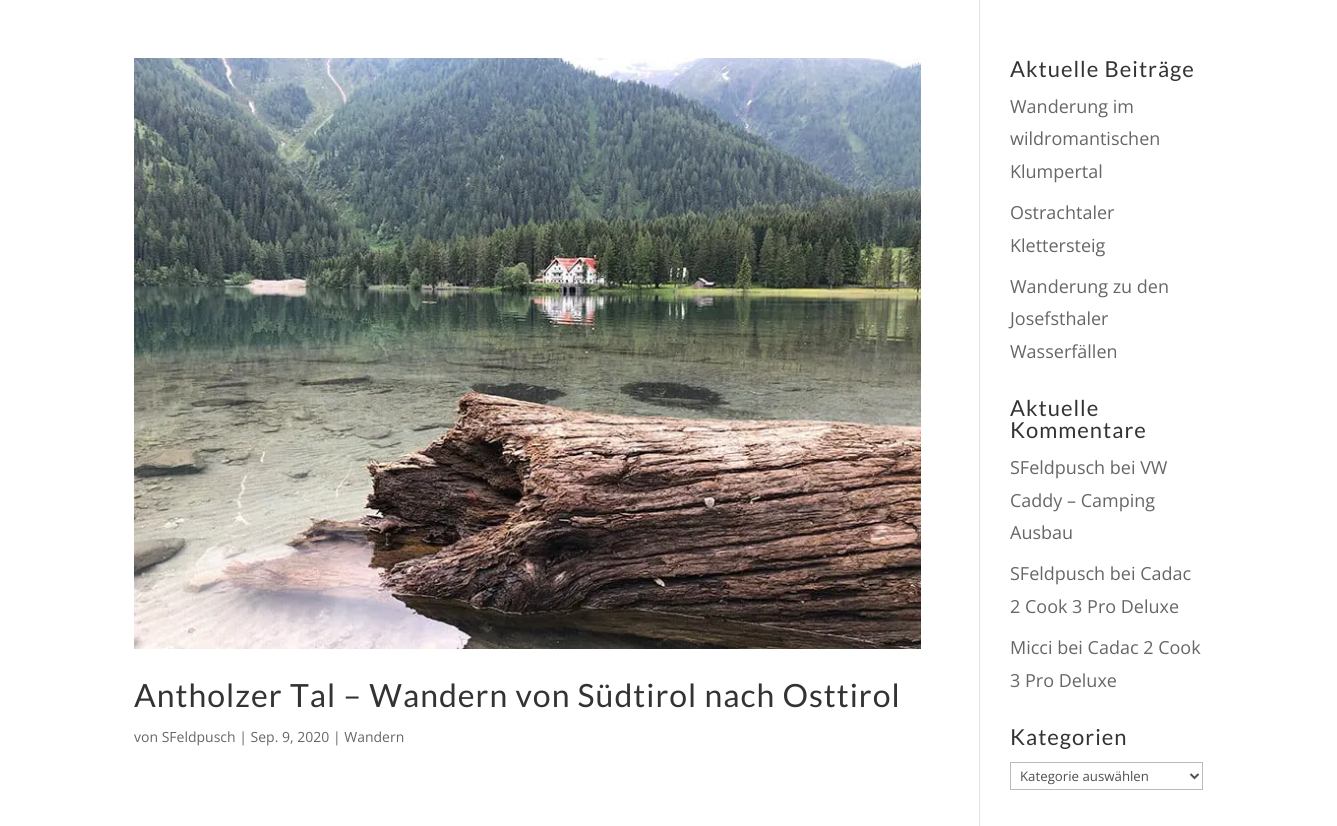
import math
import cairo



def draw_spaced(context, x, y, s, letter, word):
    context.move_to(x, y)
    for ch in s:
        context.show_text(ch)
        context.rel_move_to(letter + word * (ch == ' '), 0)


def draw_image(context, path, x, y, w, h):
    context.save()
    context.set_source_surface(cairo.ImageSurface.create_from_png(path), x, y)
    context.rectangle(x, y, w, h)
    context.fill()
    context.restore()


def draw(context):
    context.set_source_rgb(1, 1, 1)
    context.paint()
    context.set_source_rgb(226 / 255, 226 / 255, 226 / 255)
    context.rectangle(979, 0, 1, 826)
    context.fill()
    draw_image(context, "images/1.png", 134, 58, 787, 591)
    context.rectangle(1010.5, 762.5, 192, 27)
    context.set_source_rgb(187 / 255, 187 / 255, 187 / 255)
    context.set_line_width(1)
    context.stroke()
    context.new_path()
    context.move_to(1190.5, 774)
    context.line_to(1194.5, 778)
    context.line_to(1198.5, 774)
    context.set_source_rgb(78 / 255, 78 / 255, 78 / 255)
    context.set_line_width(2)
    context.stroke()
    context.select_font_face("Lato")
    context.set_font_size(32)
    context.set_source_rgb(51 / 255, 51 / 255, 51 / 255)
    draw_spaced(context, 134, 707, "Antholzer Tal – Wandern von Südtirol nach Osttirol", 1, 0)
    context.select_font_face("Open Sans")
    context.set_font_size(14)
    context.set_source_rgb(102 / 255, 102 / 255, 102 / 255)
    context.move_to(134, 742)
    context.show_text("von SFeldpusch | Sep. 9, 2020 | Wandern")
    context.select_font_face("Lato")
    context.set_font_size(22)
    context.set_source_rgb(51 / 255, 51 / 255, 51 / 255)
    draw_spaced(context, 1010, 77, "Aktuelle Beiträge", 1, 0)
    context.select_font_face("Open Sans")
    context.set_font_size(18)
    context.set_source_rgb(102 / 255, 102 / 255, 102 / 255)
    context.move_to(1010, 113)
    context.show_text("Wanderung im")
    context.move_to(1010, 145)
    context.show_text("wildromantischen")
    context.move_to(1010, 178)
    context.show_text("Klumpertal")
    context.move_to(1010, 219)
    context.show_text("Ostrachtaler")
    context.move_to(1010, 252)
    context.show_text("Klettersteig")
    context.move_to(1010, 293)
    context.show_text("Wanderung zu den")
    context.move_to(1010, 325)
    context.show_text("Josefsthaler")
    context.move_to(1010, 358)
    context.show_text("Wasserfällen")
    context.select_font_face("Lato")
    context.set_font_size(22)
    context.set_source_rgb(51 / 255, 51 / 255, 51 / 255)
    draw_spaced(context, 1010, 416, "Aktuelle", 1, 0)
    draw_spaced(context, 1010, 438, "Kommentare", 1, 0)
    context.select_font_face("Open Sans")
    context.set_font_size(18)
    context.set_source_rgb(102 / 255, 102 / 255, 102 / 255)
    context.move_to(1010, 474)
    context.show_text("SFeldpusch bei VW")
    context.move_to(1010, 507)
    context.show_text("Caddy – Camping")
    context.move_to(1010, 539)
    context.show_text("Ausbau")
    context.move_to(1010, 580)
    context.show_text("SFeldpusch bei Cadac")
    context.move_to(1010, 613)
    context.show_text("2 Cook 3 Pro Deluxe")
    context.move_to(1010, 654)
    context.show_text("Micci bei Cadac 2 Cook")
    context.move_to(1010, 687)
    context.show_text("3 Pro Deluxe")
    context.select_font_face("Lato")
    context.set_font_size(22)
    context.set_source_rgb(51 / 255, 51 / 255, 51 / 255)
    draw_spaced(context, 1010, 745, "Kategorien", 1, 0)
    context.select_font_face("Open Sans")
    context.set_font_size(13.25)
    context.set_source_rgb(78 / 255, 78 / 255, 78 / 255)
    context.move_to(1020, 781)
    context.show_text("Kategorie auswählen")


surface = cairo.ImageSurface(cairo.Format.RGB24, 1337, 826)
context = cairo.Context(surface)
options = cairo.FontOptions()
options.set_hint_metrics(cairo.HintMetrics.OFF)
options.set_hint_style(cairo.HintStyle.NONE)
context.set_font_options(options)
context.set_miter_limit(4)
draw(context)
surface.write_to_png("out.png")
